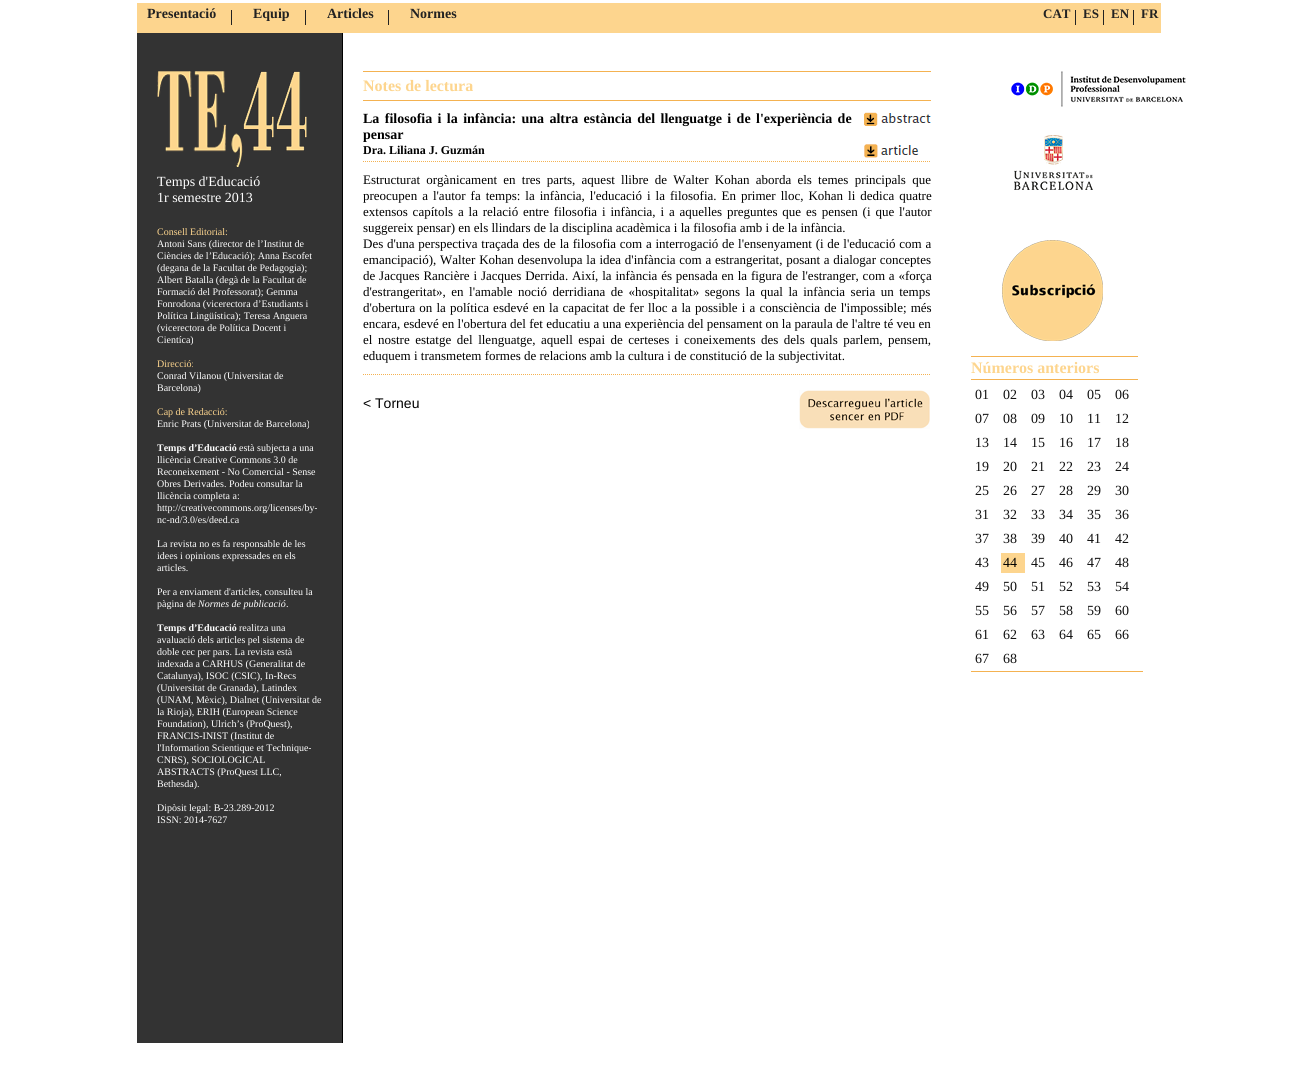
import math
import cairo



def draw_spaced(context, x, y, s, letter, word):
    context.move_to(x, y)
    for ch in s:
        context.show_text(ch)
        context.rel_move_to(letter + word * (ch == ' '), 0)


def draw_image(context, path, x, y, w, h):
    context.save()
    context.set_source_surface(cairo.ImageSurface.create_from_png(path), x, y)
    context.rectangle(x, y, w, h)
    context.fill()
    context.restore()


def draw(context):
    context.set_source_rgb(1, 1, 1)
    context.paint()
    context.set_source_rgb(253 / 255, 213 / 255, 142 / 255)
    context.rectangle(137, 3, 1024, 30)
    context.fill()
    context.set_source_rgb(34 / 255, 34 / 255, 34 / 255)
    context.rectangle(231, 10, 1, 15)
    context.fill()
    context.rectangle(305, 10, 1, 15)
    context.fill()
    context.rectangle(388, 10, 1, 15)
    context.fill()
    context.rectangle(1075, 10, 1, 15)
    context.fill()
    context.rectangle(1103, 10, 1, 15)
    context.fill()
    context.rectangle(1133, 10, 1, 15)
    context.fill()
    context.set_source_rgb(51 / 255, 51 / 255, 51 / 255)
    context.rectangle(137, 33, 205, 1010)
    context.fill()
    context.set_source_rgb(0, 0, 0)
    context.rectangle(342, 33, 1, 1010)
    context.fill()
    draw_image(context, "images/1.png", 157, 71, 150, 96)
    context.new_path()
    context.move_to(363, 374.5)
    context.line_to(931, 374.5)
    context.set_source_rgb(244 / 255, 178 / 255, 81 / 255)
    context.set_line_width(1)
    context.set_dash([1, 1])
    context.stroke()
    context.rectangle(363, 71, 568, 1)
    context.fill()
    context.rectangle(363, 100, 568, 1)
    context.fill()
    draw_image(context, "images/2.png", 864, 112, 67, 14)
    draw_image(context, "images/3.png", 864, 144, 55, 14)
    context.new_path()
    context.move_to(363, 161.5)
    context.line_to(931, 161.5)
    context.stroke()
    draw_image(context, "images/4.png", 799, 390, 131, 39)
    draw_image(context, "images/5.png", 1011, 71, 175, 36)
    draw_image(context, "images/6.png", 1014, 135, 79, 55)
    draw_image(context, "images/7.png", 1002, 240, 101, 101)
    context.rectangle(971, 671, 172, 1)
    context.fill()
    context.rectangle(971, 356, 167, 1)
    context.fill()
    context.rectangle(971, 379, 167, 1)
    context.fill()
    context.set_source_rgb(253 / 255, 213 / 255, 142 / 255)
    context.rectangle(1001, 553, 24, 20)
    context.fill()
    context.select_font_face("Liberation Serif", cairo.FontSlant.NORMAL, cairo.FontWeight.BOLD)
    context.set_font_size(14)
    context.set_source_rgb(34 / 255, 34 / 255, 34 / 255)
    context.move_to(147, 18)
    context.show_text("Presentació")
    context.move_to(253, 18)
    context.show_text("Equip")
    context.move_to(327, 18)
    context.show_text("Articles")
    context.move_to(410, 18)
    context.show_text("Normes")
    context.set_font_size(13)
    context.move_to(1043, 18)
    context.show_text("CAT")
    context.move_to(1083, 18)
    context.show_text("ES")
    context.move_to(1111, 18)
    context.show_text("EN")
    context.move_to(1141, 18)
    context.show_text("FR")
    context.select_font_face("Liberation Serif")
    context.set_font_size(14)
    context.set_source_rgb(1, 1, 1)
    context.move_to(157, 186)
    context.show_text("Temps d'Educació")
    context.move_to(157, 202)
    context.show_text("1r semestre 2013")
    context.set_font_size(10)
    context.set_source_rgb(253 / 255, 213 / 255, 142 / 255)
    context.move_to(157, 235)
    context.show_text("Consell Editorial:")
    context.set_source_rgb(1, 1, 1)
    context.move_to(157, 247)
    context.show_text("Antoni Sans (director de l’Institut de")
    context.move_to(157, 259)
    context.show_text("Ciències de l’Educació); Anna Escofet")
    context.move_to(157, 271)
    context.show_text("(degana de la Facultat de Pedagogia);")
    context.move_to(157, 283)
    context.show_text("Albert Batalla (degà de la Facultat de")
    context.move_to(157, 295)
    context.show_text("Formació del Professorat); Gemma")
    context.move_to(157, 307)
    context.show_text("Fonrodona (vicerectora d’Estudiants i")
    context.move_to(157, 319)
    context.show_text("Política Lingüística); Teresa Anguera")
    context.move_to(157, 331)
    context.show_text("(vicerectora de Política Docent i")
    context.move_to(157, 343)
    context.show_text("Cientíca)")
    context.set_source_rgb(253 / 255, 213 / 255, 142 / 255)
    context.move_to(157, 367)
    context.show_text("Direcció:")
    context.set_source_rgb(1, 1, 1)
    context.move_to(157, 379)
    context.show_text("Conrad Vilanou (Universitat de")
    context.move_to(157, 391)
    context.show_text("Barcelona)")
    context.set_source_rgb(253 / 255, 213 / 255, 142 / 255)
    context.move_to(157, 415)
    context.show_text("Cap de Redacció:")
    context.set_source_rgb(1, 1, 1)
    context.move_to(157, 427)
    context.show_text("Enric Prats (Universitat de Barcelona)")
    context.select_font_face("Liberation Serif", cairo.FontSlant.NORMAL, cairo.FontWeight.BOLD)
    context.move_to(157, 451)
    context.show_text("Temps d’Educació")
    context.select_font_face("Liberation Serif")
    context.move_to(239, 451)
    context.show_text("està subjecta a una")
    context.move_to(157, 463)
    context.show_text("llicència Creative Commons 3.0 de")
    context.move_to(157, 475)
    context.show_text("Reconeixement - No Comercial - Sense")
    context.move_to(157, 487)
    context.show_text("Obres Derivades. Podeu consultar la")
    context.move_to(157, 499)
    context.show_text("llicència completa a:")
    context.move_to(157, 511)
    context.show_text("http://creativecommons.org/licenses/by-")
    context.move_to(157, 523)
    context.show_text("nc-nd/3.0/es/deed.ca")
    context.move_to(157, 547)
    context.show_text("La revista no es fa responsable de les")
    context.move_to(157, 559)
    context.show_text("idees i opinions expressades en els")
    context.move_to(157, 571)
    context.show_text("articles.")
    context.move_to(157, 595)
    context.show_text("Per a enviament d'articles, consulteu la")
    context.move_to(157, 607)
    context.show_text("pàgina de")
    context.select_font_face("Liberation Serif", cairo.FontSlant.ITALIC)
    context.move_to(198, 607)
    context.show_text("Normes de publicació")
    context.select_font_face("Liberation Serif")
    context.move_to(286, 607)
    context.show_text(".")
    context.select_font_face("Liberation Serif", cairo.FontSlant.NORMAL, cairo.FontWeight.BOLD)
    context.move_to(157, 631)
    context.show_text("Temps d’Educació")
    context.select_font_face("Liberation Serif")
    context.move_to(239, 631)
    context.show_text("realitza una")
    context.move_to(157, 643)
    context.show_text("avaluació dels articles pel sistema de")
    context.move_to(157, 655)
    context.show_text("doble cec per pars. La revista està")
    context.move_to(157, 667)
    context.show_text("indexada a CARHUS (Generalitat de")
    context.move_to(157, 679)
    context.show_text("Catalunya), ISOC (CSIC), In-Recs")
    context.move_to(157, 691)
    context.show_text("(Universitat de Granada), Latindex")
    context.move_to(157, 703)
    context.show_text("(UNAM, Mèxic), Dialnet (Universitat de")
    context.move_to(157, 715)
    context.show_text("la Rioja), ERIH (European Science")
    context.move_to(157, 727)
    context.show_text("Foundation), Ulrich’s (ProQuest),")
    context.move_to(157, 739)
    context.show_text("FRANCIS-INIST (Institut de")
    context.move_to(157, 751)
    context.show_text("l'Information Scientique et Technique-")
    context.move_to(157, 763)
    context.show_text("CNRS), SOCIOLOGICAL")
    context.move_to(157, 775)
    context.show_text("ABSTRACTS (ProQuest LLC,")
    context.move_to(157, 787)
    context.show_text("Bethesda).")
    context.move_to(157, 811)
    context.show_text("Dipòsit legal: B-23.289-2012")
    context.move_to(157, 823)
    context.show_text("ISSN: 2014-7627")
    context.select_font_face("Liberation Serif", cairo.FontSlant.NORMAL, cairo.FontWeight.BOLD)
    context.set_font_size(16)
    context.set_source_rgb(253 / 255, 213 / 255, 142 / 255)
    context.move_to(363, 91)
    context.show_text("Notes de lectura")
    context.set_font_size(14)
    context.set_source_rgb(0, 0, 0)
    draw_spaced(context, 363, 123, "La filosofia i la infància: una altra estància del llenguatge i de l'experiència de", 0, 1.9)
    context.move_to(363, 139)
    context.show_text("pensar")
    context.set_font_size(12)
    context.move_to(363, 154)
    context.show_text("Dra. Liliana J. Guzmán")
    context.select_font_face("Liberation Serif")
    context.set_font_size(13)
    draw_spaced(context, 363, 184, "Estructurat orgànicament en tres parts, aquest llibre de Walter Kohan aborda els temes principals que", 0, 3)
    draw_spaced(context, 363, 200, "preocupen a l'autor fa temps: la infància, l'educació i la filosofia. En primer lloc, Kohan li dedica quatre", 0, 1.75)
    draw_spaced(context, 363, 216, "extensos capítols a la relació entre filosofia i infància, i a aquelles preguntes que es pensen (i que l'autor", 0, 1.6)
    context.move_to(363, 232)
    context.show_text("suggereix pensar) en els llindars de la disciplina acadèmica i la filosofia amb i de la infància.")
    draw_spaced(context, 363, 248, "Des d'una perspectiva traçada des de la filosofia com a interrogació de l'ensenyament (i de l'educació com a", 0, 0.5)
    draw_spaced(context, 363, 264, "emancipació), Walter Kohan desenvolupa la idea d'infància com a estrangeritat, posant a dialogar conceptes", 0, 0.5)
    draw_spaced(context, 363, 280, "de Jacques Rancière i Jacques Derrida. Així, la infància és pensada en la figura de l'estranger, com a «força", 0, 0.6)
    draw_spaced(context, 363, 296, "d'estrangeritat», en l'amable noció derridiana de «hospitalitat» segons la qual la infància seria un temps", 0, 2.25)
    draw_spaced(context, 363, 312, "d'obertura on la política esdevé en la capacitat de fer lloc a la possible i a consciència de l'impossible; més", 0, 0.9)
    context.move_to(363, 328)
    context.show_text("encara, esdevé en l'obertura del fet educatiu a una experiència del pensament on la paraula de l'altre té veu en")
    draw_spaced(context, 363, 344, "el nostre estatge del llenguatge, aquell espai de certeses i coneixements des dels quals parlem, pensem,", 0, 2.25)
    context.move_to(363, 360)
    context.show_text("eduquem i transmetem formes de relacions amb la cultura i de constitució de la subjectivitat.")
    context.select_font_face("Liberation Sans")
    context.set_font_size(14)
    context.move_to(363, 408)
    context.show_text("< Torneu")
    context.select_font_face("Liberation Serif", cairo.FontSlant.NORMAL, cairo.FontWeight.BOLD)
    context.set_font_size(16)
    context.set_source_rgb(253 / 255, 213 / 255, 142 / 255)
    context.move_to(971, 373)
    context.show_text("Números anteriors")
    context.select_font_face("Liberation Serif")
    context.set_font_size(14)
    context.set_source_rgb(17 / 255, 17 / 255, 17 / 255)
    context.move_to(975, 399)
    context.show_text("01")
    context.move_to(1003, 399)
    context.show_text("02")
    context.move_to(1031, 399)
    context.show_text("03")
    context.move_to(1059, 399)
    context.show_text("04")
    context.move_to(1087, 399)
    context.show_text("05")
    context.move_to(1115, 399)
    context.show_text("06")
    context.move_to(975, 423)
    context.show_text("07")
    context.move_to(1003, 423)
    context.show_text("08")
    context.move_to(1031, 423)
    context.show_text("09")
    context.move_to(1059, 423)
    context.show_text("10")
    context.move_to(1087, 423)
    context.show_text("11")
    context.move_to(1115, 423)
    context.show_text("12")
    context.move_to(975, 447)
    context.show_text("13")
    context.move_to(1003, 447)
    context.show_text("14")
    context.move_to(1031, 447)
    context.show_text("15")
    context.move_to(1059, 447)
    context.show_text("16")
    context.move_to(1087, 447)
    context.show_text("17")
    context.move_to(1115, 447)
    context.show_text("18")
    context.move_to(975, 471)
    context.show_text("19")
    context.move_to(1003, 471)
    context.show_text("20")
    context.move_to(1031, 471)
    context.show_text("21")
    context.move_to(1059, 471)
    context.show_text("22")
    context.move_to(1087, 471)
    context.show_text("23")
    context.move_to(1115, 471)
    context.show_text("24")
    context.move_to(975, 495)
    context.show_text("25")
    context.move_to(1003, 495)
    context.show_text("26")
    context.move_to(1031, 495)
    context.show_text("27")
    context.move_to(1059, 495)
    context.show_text("28")
    context.move_to(1087, 495)
    context.show_text("29")
    context.move_to(1115, 495)
    context.show_text("30")
    context.move_to(975, 519)
    context.show_text("31")
    context.move_to(1003, 519)
    context.show_text("32")
    context.move_to(1031, 519)
    context.show_text("33")
    context.move_to(1059, 519)
    context.show_text("34")
    context.move_to(1087, 519)
    context.show_text("35")
    context.move_to(1115, 519)
    context.show_text("36")
    context.move_to(975, 543)
    context.show_text("37")
    context.move_to(1003, 543)
    context.show_text("38")
    context.move_to(1031, 543)
    context.show_text("39")
    context.move_to(1059, 543)
    context.show_text("40")
    context.move_to(1087, 543)
    context.show_text("41")
    context.move_to(1115, 543)
    context.show_text("42")
    context.move_to(975, 567)
    context.show_text("43")
    context.set_source_rgb(0, 0, 0)
    context.move_to(1003, 567)
    context.show_text("44")
    context.set_source_rgb(17 / 255, 17 / 255, 17 / 255)
    context.move_to(1031, 567)
    context.show_text("45")
    context.move_to(1059, 567)
    context.show_text("46")
    context.move_to(1087, 567)
    context.show_text("47")
    context.move_to(1115, 567)
    context.show_text("48")
    context.move_to(975, 591)
    context.show_text("49")
    context.move_to(1003, 591)
    context.show_text("50")
    context.move_to(1031, 591)
    context.show_text("51")
    context.move_to(1059, 591)
    context.show_text("52")
    context.move_to(1087, 591)
    context.show_text("53")
    context.move_to(1115, 591)
    context.show_text("54")
    context.move_to(975, 615)
    context.show_text("55")
    context.move_to(1003, 615)
    context.show_text("56")
    context.move_to(1031, 615)
    context.show_text("57")
    context.move_to(1059, 615)
    context.show_text("58")
    context.move_to(1087, 615)
    context.show_text("59")
    context.move_to(1115, 615)
    context.show_text("60")
    context.move_to(975, 639)
    context.show_text("61")
    context.move_to(1003, 639)
    context.show_text("62")
    context.move_to(1031, 639)
    context.show_text("63")
    context.move_to(1059, 639)
    context.show_text("64")
    context.move_to(1087, 639)
    context.show_text("65")
    context.move_to(1115, 639)
    context.show_text("66")
    context.move_to(975, 663)
    context.show_text("67")
    context.move_to(1003, 663)
    context.show_text("68")


surface = cairo.ImageSurface(cairo.Format.RGB24, 1298, 1076)
context = cairo.Context(surface)
options = cairo.FontOptions()
options.set_hint_metrics(cairo.HintMetrics.OFF)
options.set_hint_style(cairo.HintStyle.NONE)
context.set_font_options(options)
context.set_miter_limit(4)
draw(context)
surface.write_to_png("out.png")
